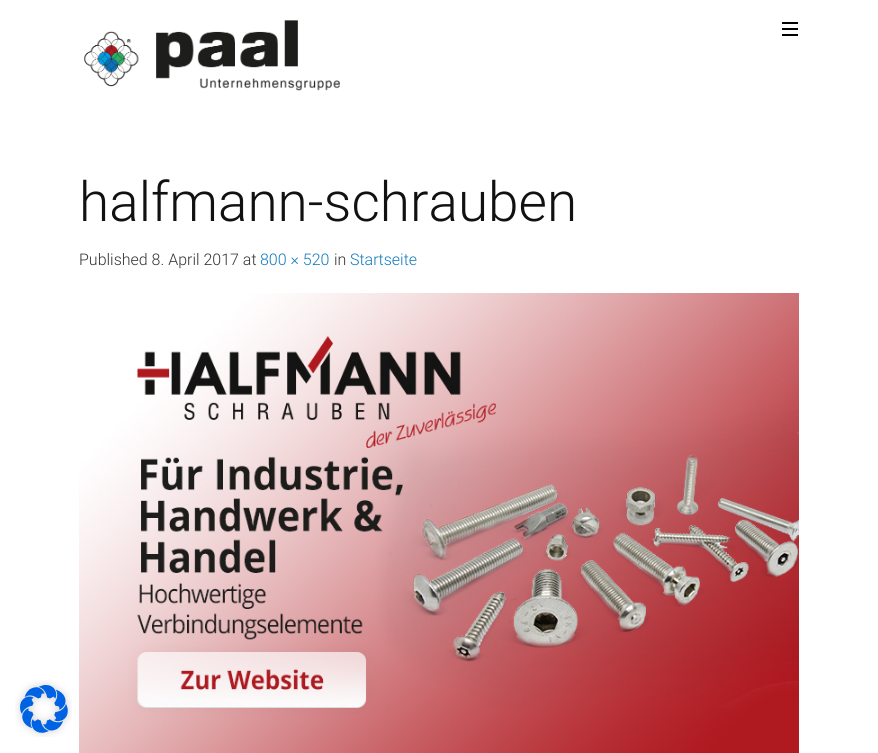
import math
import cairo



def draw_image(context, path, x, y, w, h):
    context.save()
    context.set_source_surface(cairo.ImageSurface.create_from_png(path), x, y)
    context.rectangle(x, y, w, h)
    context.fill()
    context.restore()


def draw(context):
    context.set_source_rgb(1, 1, 1)
    context.paint()
    draw_image(context, "images/1.png", 84, 20, 256, 71)
    context.set_source_rgb(0, 0, 0)
    context.rectangle(782, 22, 16, 2)
    context.fill()
    context.rectangle(782, 28, 16, 2)
    context.fill()
    context.rectangle(782, 34, 16, 2)
    context.fill()
    draw_image(context, "images/2.png", 79, 293, 720, 460)
    draw_image(context, "images/3.png", 15, 680, 57, 57)
    context.select_font_face("Roboto Light")
    context.set_font_size(55)
    context.set_source_rgb(17 / 255, 17 / 255, 17 / 255)
    context.move_to(79, 221)
    context.show_text("halfmann-schrauben")
    context.set_font_size(16)
    context.set_source_rgb(51 / 255, 51 / 255, 51 / 255)
    context.move_to(79, 265)
    context.show_text("Published 8. April 2017 at")
    context.set_source_rgb(17 / 255, 122 / 255, 188 / 255)
    context.move_to(260, 265)
    context.show_text("800 × 520")
    context.set_source_rgb(51 / 255, 51 / 255, 51 / 255)
    context.move_to(334, 265)
    context.show_text("in")
    context.set_source_rgb(17 / 255, 122 / 255, 188 / 255)
    context.move_to(350, 265)
    context.show_text("Startseite")


surface = cairo.ImageSurface(cairo.Format.RGB24, 878, 753)
context = cairo.Context(surface)
options = cairo.FontOptions()
options.set_hint_metrics(cairo.HintMetrics.OFF)
options.set_hint_style(cairo.HintStyle.NONE)
context.set_font_options(options)
context.set_miter_limit(4)
draw(context)
surface.write_to_png("out.png")
